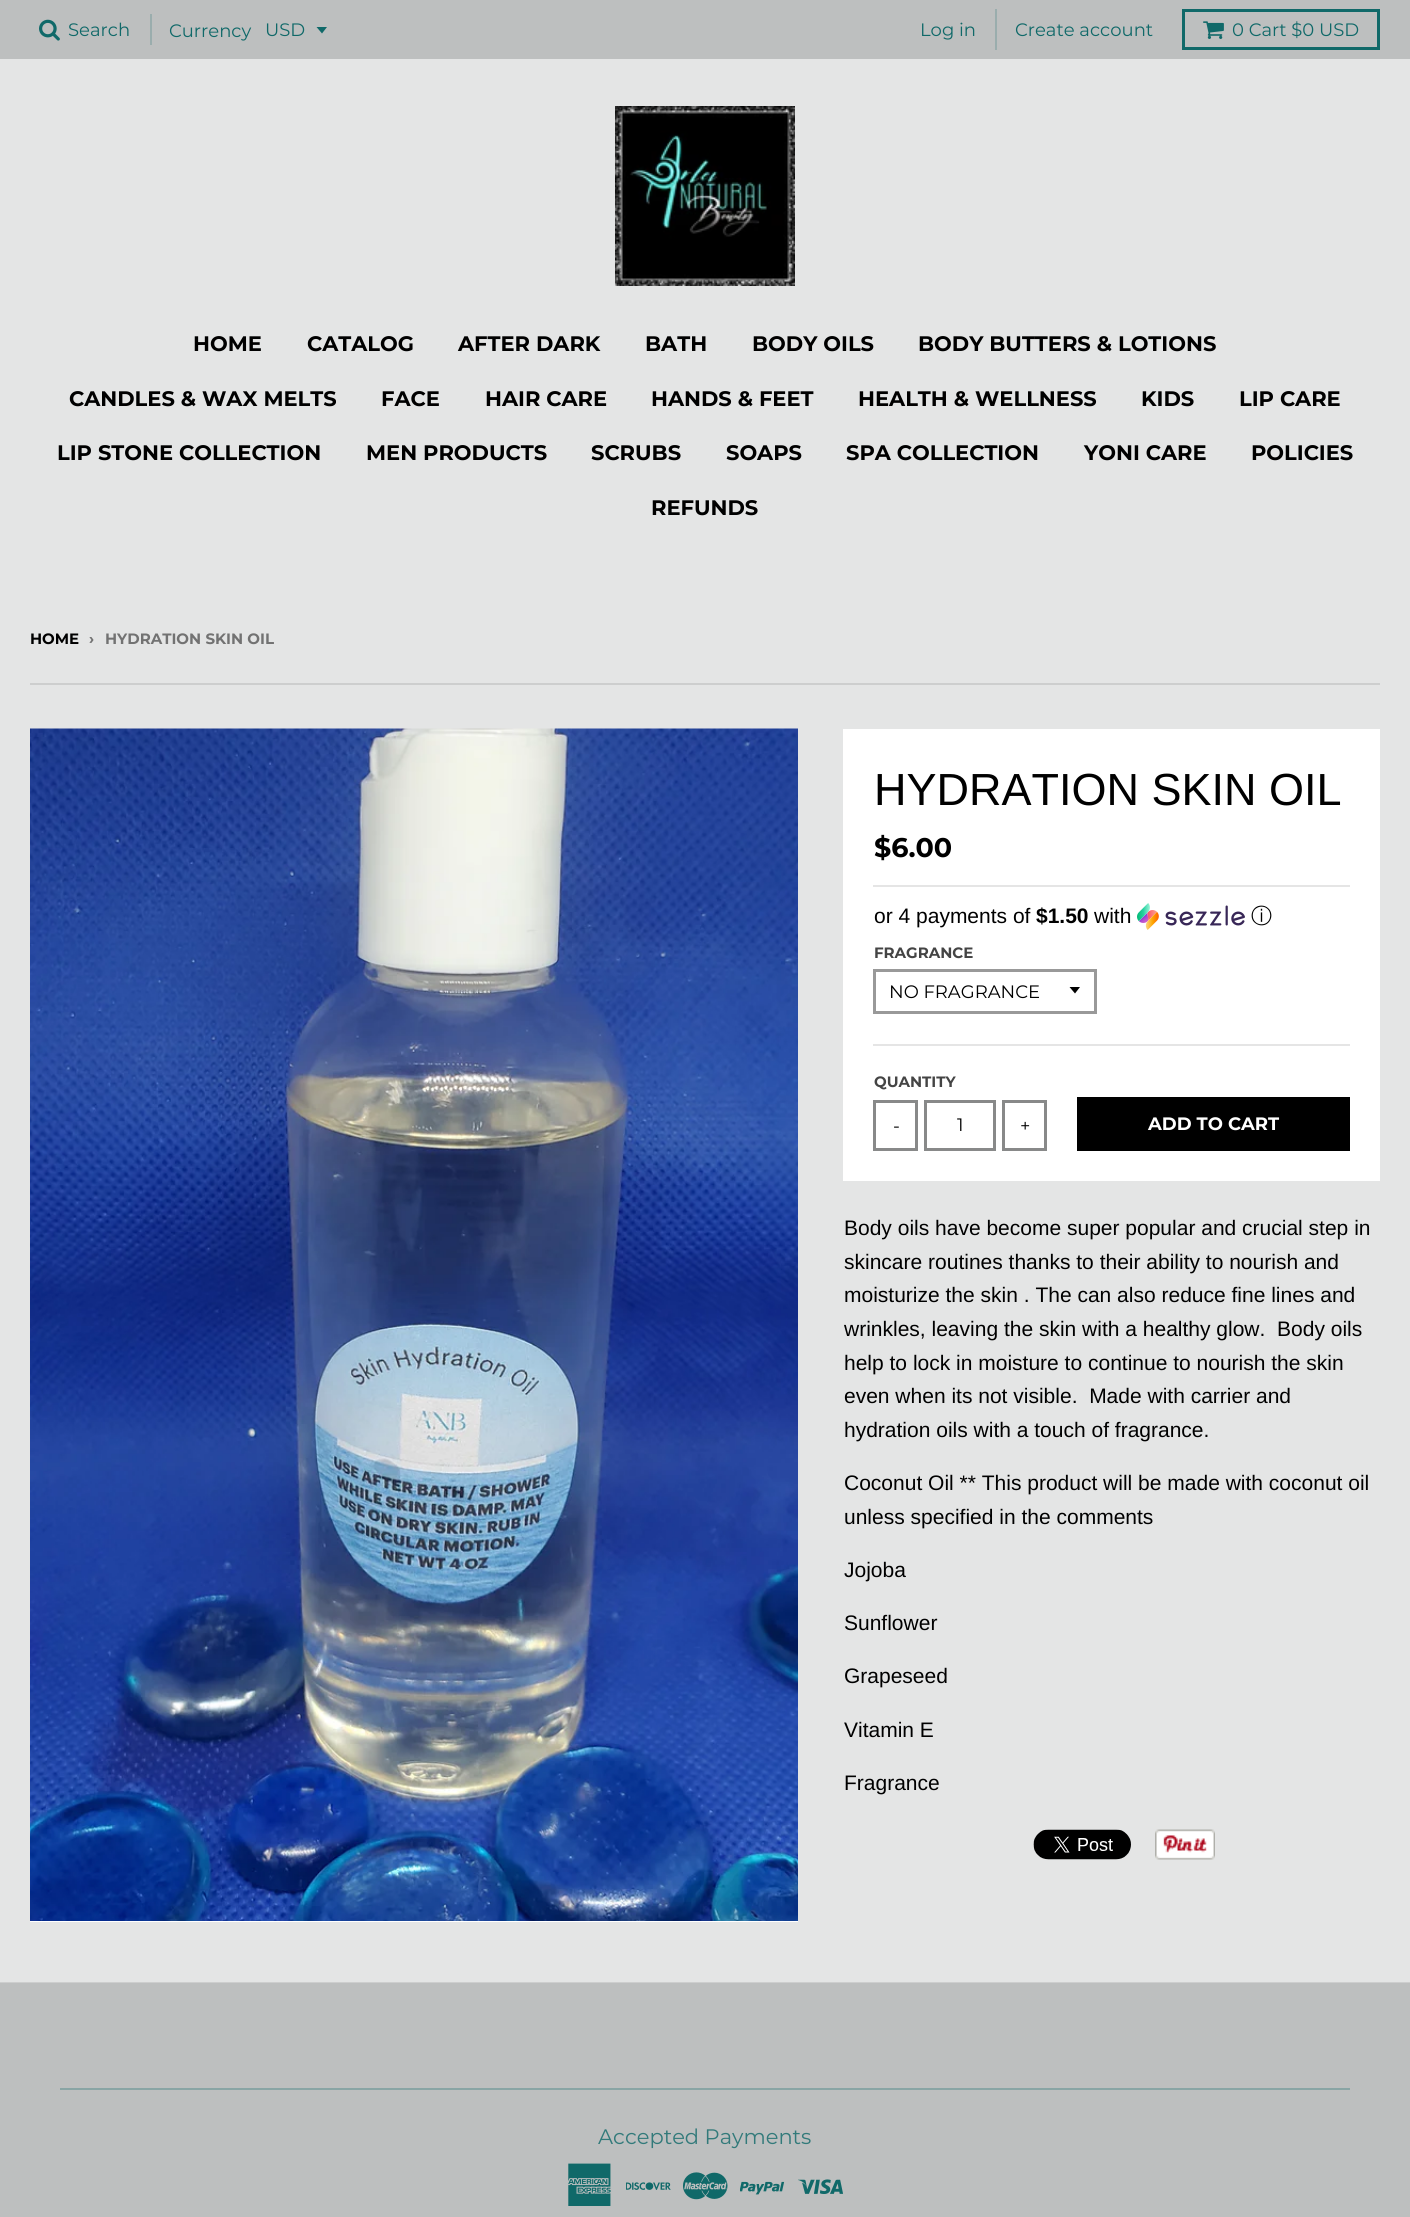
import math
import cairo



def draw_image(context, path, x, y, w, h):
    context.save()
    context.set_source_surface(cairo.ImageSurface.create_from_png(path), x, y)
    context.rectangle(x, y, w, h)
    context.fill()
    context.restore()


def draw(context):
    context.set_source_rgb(228 / 255, 229 / 255, 229 / 255)
    context.paint()
    context.set_source_rgb(189 / 255, 191 / 255, 191 / 255)
    context.rectangle(0, 0, 1410, 59)
    context.fill()
    draw_image(context, "images/1.png", 39, 19, 21, 22)
    context.set_source_rgb(154 / 255, 173 / 255, 173 / 255)
    context.rectangle(150, 14, 2, 31)
    context.fill()
    context.set_source_rgb(16 / 255, 105 / 255, 105 / 255)
    context.new_path()
    context.move_to(316.5, 27)
    context.line_to(322, 33.5)
    context.line_to(327, 27)
    context.close_path()
    context.fill()
    context.set_source_rgb(154 / 255, 173 / 255, 173 / 255)
    context.rectangle(995, 9, 2, 41)
    context.fill()
    context.rectangle(1183.5, 10.5, 195, 38)
    context.set_source_rgb(16 / 255, 105 / 255, 105 / 255)
    context.set_line_width(3)
    context.stroke()
    draw_image(context, "images/2.png", 1203, 21, 21, 18)
    draw_image(context, "images/3.png", 615, 106, 180, 180)
    context.set_source_rgb(205 / 255, 206 / 255, 206 / 255)
    context.rectangle(0, 1982, 1410, 1)
    context.fill()
    context.rectangle(30, 683, 1350, 2)
    context.fill()
    context.set_source_rgb(1, 1, 1)
    context.rectangle(30, 1921, 768, 1)
    context.fill()
    draw_image(context, "images/4.png", 30, 728, 768, 1193)
    context.rectangle(843, 729, 537, 452)
    context.fill()
    context.set_source_rgb(229 / 255, 229 / 255, 229 / 255)
    context.rectangle(873, 885, 477, 2)
    context.fill()
    draw_image(context, "images/5.png", 1137, 903, 108, 27)
    context.rectangle(873, 1044, 477, 2)
    context.fill()
    context.set_source_rgb(0, 0, 0)
    context.new_path()
    context.move_to(1069.5, 987)
    context.line_to(1075, 993.5)
    context.line_to(1080, 987)
    context.close_path()
    context.fill()
    context.rectangle(874.5, 970.5, 221, 42)
    context.set_source_rgb(153 / 255, 153 / 255, 153 / 255)
    context.stroke()
    context.rectangle(874.5, 1101.5, 42, 48)
    context.set_source_rgb(136 / 255, 137 / 255, 137 / 255)
    context.stroke()
    context.rectangle(925.5, 1101.5, 69, 48)
    context.stroke()
    context.rectangle(1003.5, 1101.5, 42, 48)
    context.stroke()
    context.set_source_rgb(0, 0, 0)
    context.rectangle(1077, 1097, 273, 54)
    context.fill()
    draw_image(context, "images/6.png", 1033, 1829, 98, 31)
    draw_image(context, "images/7.png", 1155, 1829, 60, 31)
    context.set_source_rgb(189 / 255, 191 / 255, 191 / 255)
    context.rectangle(0, 1983, 1410, 234)
    context.fill()
    context.set_source_rgb(137 / 255, 165 / 255, 165 / 255)
    context.rectangle(60, 2088, 1290, 2)
    context.fill()
    draw_image(context, "images/8.png", 568, 2163, 43, 43)
    draw_image(context, "images/9.png", 626, 2182, 45, 8)
    draw_image(context, "images/10.png", 683, 2172, 45, 28)
    draw_image(context, "images/11.png", 740, 2181, 45, 14)
    draw_image(context, "images/12.png", 798, 2179, 45, 15)
    context.select_font_face("Montserrat")
    context.set_font_size(18)
    context.set_source_rgb(16 / 255, 105 / 255, 105 / 255)
    context.move_to(68, 36)
    context.show_text("Search")
    context.move_to(169, 37)
    context.show_text("Currency")
    context.move_to(265, 36)
    context.show_text("USD")
    context.move_to(920, 36)
    context.show_text("Log in")
    context.move_to(1015, 36)
    context.show_text("Create account")
    context.move_to(1232, 36)
    context.show_text("0 Cart $0 USD")
    context.select_font_face("Montserrat", cairo.FontSlant.NORMAL, cairo.FontWeight.BOLD)
    context.set_font_size(21)
    context.set_source_rgb(0, 0, 0)
    context.move_to(193, 351)
    context.show_text("HOME")
    context.move_to(307, 351)
    context.show_text("CATALOG")
    context.move_to(458, 351)
    context.show_text("AFTER DARK")
    context.move_to(645, 351)
    context.show_text("BATH")
    context.move_to(752, 351)
    context.show_text("BODY OILS")
    context.move_to(918, 351)
    context.show_text("BODY BUTTERS & LOTIONS")
    context.move_to(69, 406)
    context.show_text("CANDLES & WAX MELTS")
    context.move_to(381, 406)
    context.show_text("FACE")
    context.move_to(485, 406)
    context.show_text("HAIR CARE")
    context.move_to(651, 406)
    context.show_text("HANDS & FEET")
    context.move_to(858, 406)
    context.show_text("HEALTH & WELLNESS")
    context.move_to(1141, 406)
    context.show_text("KIDS")
    context.move_to(1239, 406)
    context.show_text("LIP CARE")
    context.move_to(57, 460)
    context.show_text("LIP STONE COLLECTION")
    context.move_to(366, 460)
    context.show_text("MEN PRODUCTS")
    context.move_to(591, 460)
    context.show_text("SCRUBS")
    context.move_to(726, 460)
    context.show_text("SOAPS")
    context.move_to(846, 460)
    context.show_text("SPA COLLECTION")
    context.move_to(1084, 460)
    context.show_text("YONI CARE")
    context.move_to(1251, 460)
    context.show_text("POLICIES")
    context.move_to(651, 515)
    context.show_text("REFUNDS")
    context.set_font_size(15)
    context.move_to(30, 644)
    context.show_text("HOME")
    context.set_source_rgb(114 / 255, 114 / 255, 114 / 255)
    context.move_to(89, 644)
    context.show_text("›")
    context.move_to(105, 644)
    context.show_text("HYDRATION SKIN OIL")
    context.select_font_face("Liberation Sans")
    context.set_font_size(45)
    context.set_source_rgb(0, 0, 0)
    context.move_to(874, 805)
    context.show_text("HYDRATION SKIN OIL")
    context.select_font_face("Montserrat", cairo.FontSlant.NORMAL, cairo.FontWeight.BOLD)
    context.set_font_size(27)
    context.move_to(874, 857)
    context.show_text("$6.00")
    context.select_font_face("Liberation Sans")
    context.set_font_size(21)
    context.move_to(874, 923)
    context.show_text("or 4 payments of")
    context.select_font_face("Liberation Sans", cairo.FontSlant.NORMAL, cairo.FontWeight.BOLD)
    context.move_to(1036, 923)
    context.show_text("$1.50")
    context.select_font_face("Liberation Sans")
    context.move_to(1094, 923)
    context.show_text("with")
    context.select_font_face("WenQuanYi Zen Hei Medium")
    context.move_to(1251, 923)
    context.show_text("ⓘ")
    context.select_font_face("Montserrat", cairo.FontSlant.NORMAL, cairo.FontWeight.BOLD)
    context.set_font_size(15)
    context.set_source_rgb(68 / 255, 68 / 255, 68 / 255)
    context.move_to(874, 958)
    context.show_text("FRAGRANCE")
    context.select_font_face("Montserrat")
    context.set_font_size(18)
    context.set_source_rgb(0, 0, 0)
    context.move_to(889, 998)
    context.show_text("NO FRAGRANCE")
    context.select_font_face("Montserrat", cairo.FontSlant.NORMAL, cairo.FontWeight.BOLD)
    context.set_font_size(15)
    context.set_source_rgb(68 / 255, 68 / 255, 68 / 255)
    context.move_to(874, 1087)
    context.show_text("QUANTITY")
    context.select_font_face("Montserrat")
    context.set_font_size(18)
    context.set_source_rgb(0, 0, 0)
    context.move_to(893, 1132)
    context.show_text("-")
    context.move_to(957, 1131)
    context.show_text("1")
    context.move_to(1020, 1132)
    context.show_text("+")
    context.select_font_face("Montserrat", cairo.FontSlant.NORMAL, cairo.FontWeight.BOLD)
    context.set_source_rgb(1, 1, 1)
    context.move_to(1148, 1130)
    context.show_text("ADD TO CART")
    context.select_font_face("Liberation Sans")
    context.set_font_size(21)
    context.set_source_rgb(0, 0, 0)
    context.move_to(844, 1235)
    context.show_text("Body oils have become super popular and crucial step in")
    context.move_to(844, 1269)
    context.show_text("skincare routines thanks to their ability to nourish and")
    context.move_to(844, 1302)
    context.show_text("moisturize the skin . The can also reduce fine lines and")
    context.move_to(844, 1336)
    context.show_text("wrinkles, leaving the skin with a healthy glow.  Body oils")
    context.move_to(844, 1370)
    context.show_text("help to lock in moisture to continue to nourish the skin")
    context.move_to(844, 1403)
    context.show_text("even when its not visible.  Made with carrier and")
    context.move_to(844, 1437)
    context.show_text("hydration oils with a touch of fragrance.")
    context.move_to(844, 1490)
    context.show_text("Coconut Oil ** This product will be made with coconut oil")
    context.move_to(844, 1524)
    context.show_text("unless specified in the comments")
    context.move_to(844, 1577)
    context.show_text("Jojoba")
    context.move_to(844, 1630)
    context.show_text("Sunflower")
    context.move_to(844, 1683)
    context.show_text("Grapeseed")
    context.move_to(844, 1737)
    context.show_text("Vitamin E")
    context.move_to(844, 1790)
    context.show_text("Fragrance")
    context.select_font_face("Montserrat")
    context.set_source_rgb(50 / 255, 122 / 255, 122 / 255)
    context.move_to(598, 2144)
    context.show_text("Accepted Payments")


surface = cairo.ImageSurface(cairo.Format.RGB24, 1410, 2217)
context = cairo.Context(surface)
options = cairo.FontOptions()
options.set_hint_metrics(cairo.HintMetrics.OFF)
options.set_hint_style(cairo.HintStyle.NONE)
context.set_font_options(options)
context.set_miter_limit(4)
draw(context)
surface.write_to_png("out.png")
